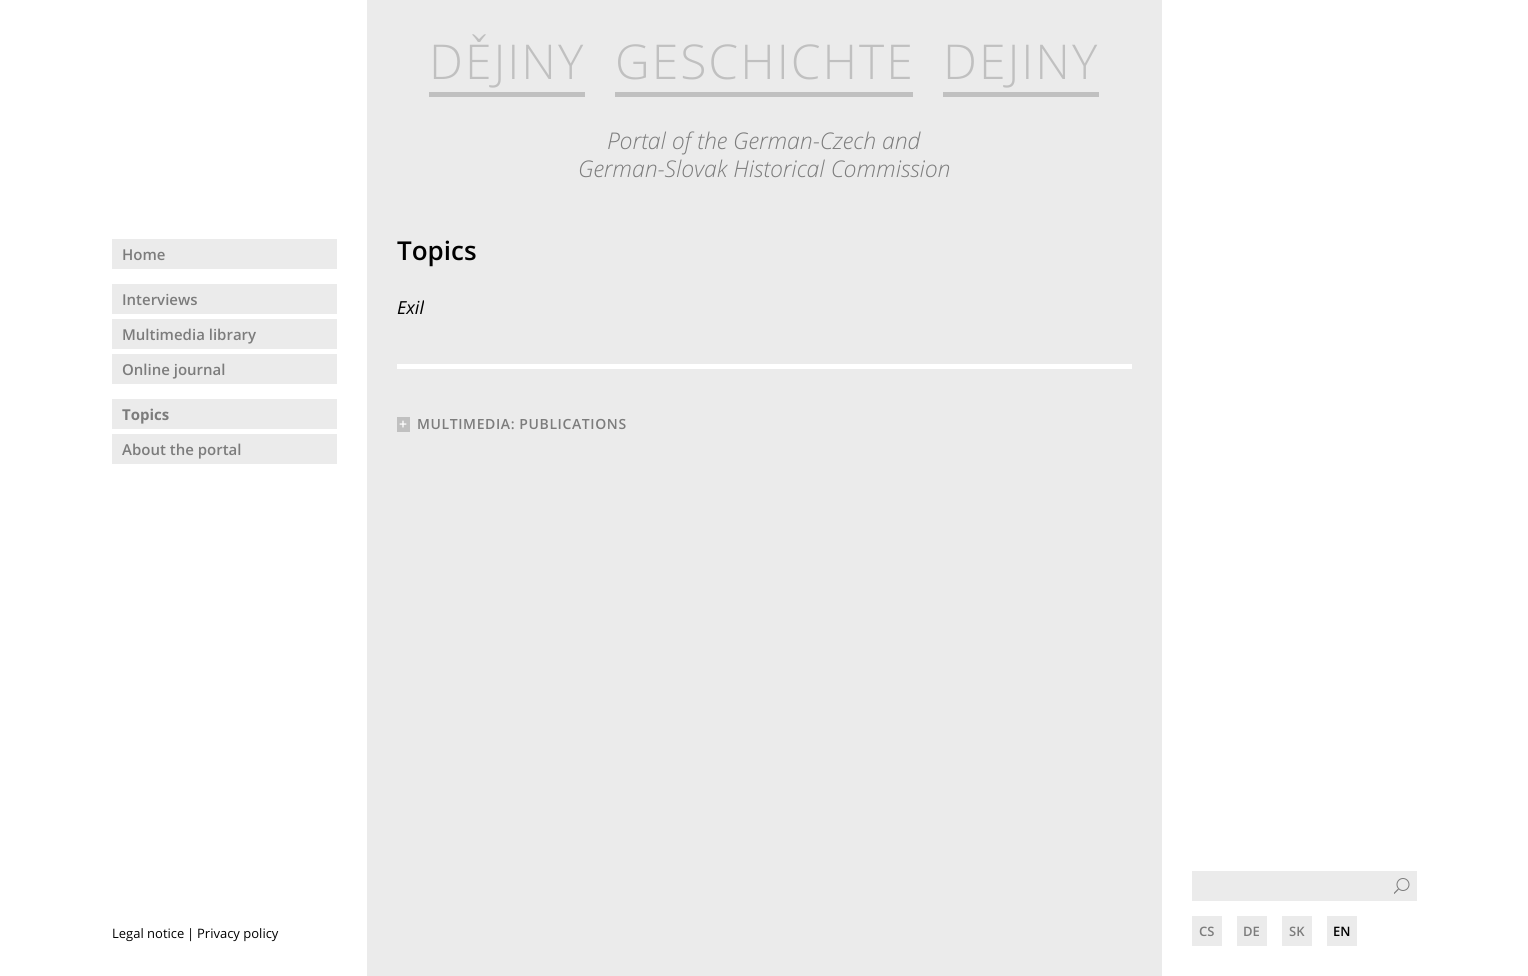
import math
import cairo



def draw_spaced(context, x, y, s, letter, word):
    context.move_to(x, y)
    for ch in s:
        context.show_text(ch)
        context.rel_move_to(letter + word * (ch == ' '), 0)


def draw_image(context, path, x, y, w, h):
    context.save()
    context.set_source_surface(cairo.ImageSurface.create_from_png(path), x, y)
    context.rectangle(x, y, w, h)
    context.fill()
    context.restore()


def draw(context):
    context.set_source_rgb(1, 1, 1)
    context.paint()
    context.set_source_rgb(235 / 255, 235 / 255, 235 / 255)
    context.rectangle(367, 0, 795, 976)
    context.fill()
    context.set_source_rgb(192 / 255, 192 / 255, 192 / 255)
    context.rectangle(429, 92, 156, 5)
    context.fill()
    context.rectangle(615, 92, 298, 5)
    context.fill()
    context.rectangle(943, 92, 156, 5)
    context.fill()
    context.set_source_rgb(1, 1, 1)
    context.rectangle(397, 364, 735, 5)
    context.fill()
    context.set_source_rgb(192 / 255, 192 / 255, 192 / 255)
    context.rectangle(397, 417, 13, 15)
    context.fill()
    context.set_source_rgb(235 / 255, 235 / 255, 235 / 255)
    context.rectangle(112, 239, 225, 30)
    context.fill()
    context.rectangle(112, 284, 225, 30)
    context.fill()
    context.rectangle(112, 319, 225, 30)
    context.fill()
    context.rectangle(112, 354, 225, 30)
    context.fill()
    context.rectangle(112, 399, 225, 30)
    context.fill()
    context.rectangle(112, 434, 225, 30)
    context.fill()
    context.rectangle(1192, 871, 225, 30)
    context.fill()
    draw_image(context, "images/1.png", 1394, 878, 16, 16)
    context.rectangle(1192, 916, 30, 30)
    context.fill()
    context.rectangle(1237, 916, 30, 30)
    context.fill()
    context.rectangle(1282, 916, 30, 30)
    context.fill()
    context.rectangle(1327, 916, 30, 30)
    context.fill()
    context.select_font_face("Open Sans Light")
    context.set_font_size(48)
    context.set_source_rgb(192 / 255, 192 / 255, 192 / 255)
    draw_spaced(context, 429, 79, "DĚJINY", 2, 0)
    draw_spaced(context, 615, 79, "GESCHICHTE", 2, 0)
    draw_spaced(context, 943, 79, "DEJINY", 2, 0)
    context.select_font_face("Open Sans Light", cairo.FontSlant.ITALIC)
    context.set_font_size(23)
    context.set_source_rgb(124 / 255, 124 / 255, 124 / 255)
    context.move_to(607, 149)
    context.show_text("Portal of the German-Czech and")
    context.move_to(578, 177)
    context.show_text("German-Slovak Historical Commission")
    context.select_font_face("Open Sans SemiBold")
    context.set_font_size(26)
    context.set_source_rgb(0, 0, 0)
    context.move_to(397, 260)
    context.show_text("Topics")
    context.select_font_face("Open Sans", cairo.FontSlant.ITALIC)
    context.set_font_size(18)
    context.move_to(397, 314)
    context.show_text("Exil")
    context.select_font_face("Open Sans SemiBold")
    context.set_font_size(14)
    context.set_source_rgb(1, 1, 1)
    draw_spaced(context, 399, 429, "+", 0.6, 0)
    context.set_source_rgb(124 / 255, 124 / 255, 124 / 255)
    draw_spaced(context, 417, 429, "MULTIMEDIA: PUBLICATIONS", 0.6, 0)
    context.set_font_size(15)
    context.move_to(122, 260)
    context.show_text("Home")
    context.move_to(122, 305)
    context.show_text("Interviews")
    context.move_to(122, 340)
    context.show_text("Multimedia library")
    context.move_to(122, 375)
    context.show_text("Online journal")
    context.select_font_face("Open Sans", cairo.FontSlant.NORMAL, cairo.FontWeight.BOLD)
    context.move_to(122, 420)
    context.show_text("Topics")
    context.select_font_face("Open Sans SemiBold")
    context.move_to(122, 455)
    context.show_text("About the portal")
    context.select_font_face("Open Sans")
    context.set_font_size(13)
    context.set_source_rgb(0, 0, 0)
    context.move_to(112, 938)
    context.show_text("Legal notice")
    context.move_to(187, 938)
    context.show_text("|")
    context.move_to(197, 938)
    context.show_text("Privacy policy")
    context.select_font_face("Open Sans SemiBold")
    context.set_source_rgb(124 / 255, 124 / 255, 124 / 255)
    context.move_to(1199, 936)
    context.show_text("CS")
    context.move_to(1243, 936)
    context.show_text("DE")
    context.move_to(1289, 936)
    context.show_text("SK")
    context.set_source_rgb(0, 0, 0)
    context.move_to(1333, 936)
    context.show_text("EN")


surface = cairo.ImageSurface(cairo.Format.RGB24, 1528, 976)
context = cairo.Context(surface)
options = cairo.FontOptions()
options.set_hint_metrics(cairo.HintMetrics.OFF)
options.set_hint_style(cairo.HintStyle.NONE)
context.set_font_options(options)
context.set_miter_limit(4)
draw(context)
surface.write_to_png("out.png")
